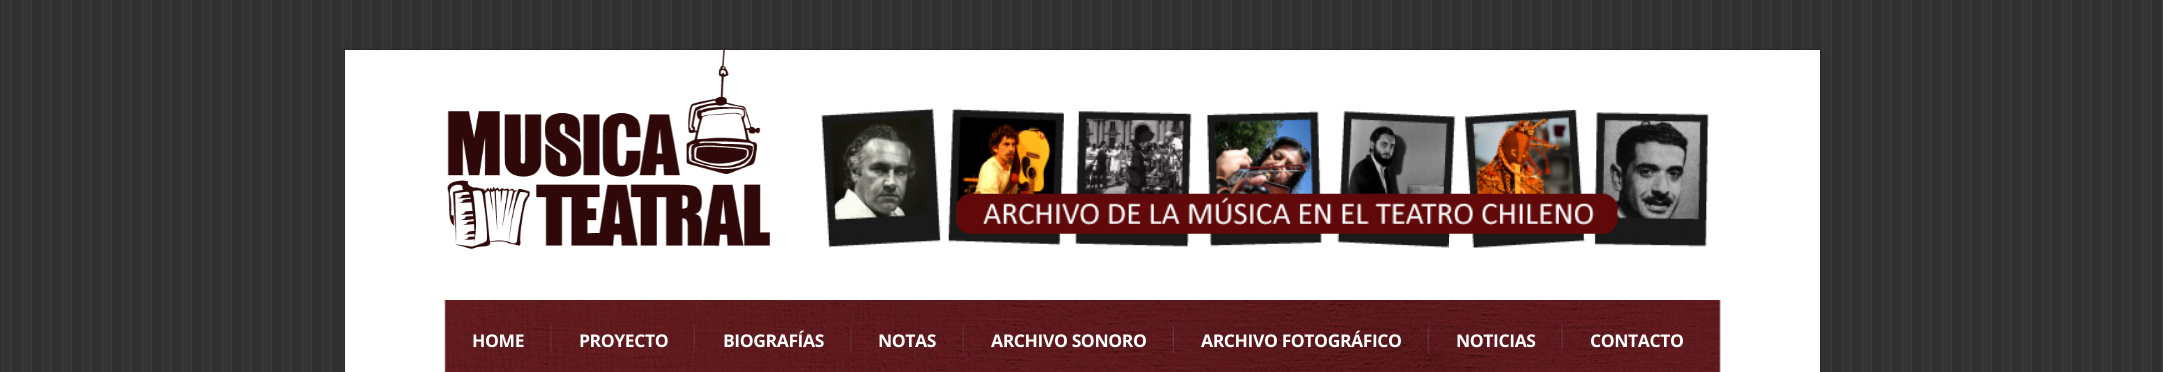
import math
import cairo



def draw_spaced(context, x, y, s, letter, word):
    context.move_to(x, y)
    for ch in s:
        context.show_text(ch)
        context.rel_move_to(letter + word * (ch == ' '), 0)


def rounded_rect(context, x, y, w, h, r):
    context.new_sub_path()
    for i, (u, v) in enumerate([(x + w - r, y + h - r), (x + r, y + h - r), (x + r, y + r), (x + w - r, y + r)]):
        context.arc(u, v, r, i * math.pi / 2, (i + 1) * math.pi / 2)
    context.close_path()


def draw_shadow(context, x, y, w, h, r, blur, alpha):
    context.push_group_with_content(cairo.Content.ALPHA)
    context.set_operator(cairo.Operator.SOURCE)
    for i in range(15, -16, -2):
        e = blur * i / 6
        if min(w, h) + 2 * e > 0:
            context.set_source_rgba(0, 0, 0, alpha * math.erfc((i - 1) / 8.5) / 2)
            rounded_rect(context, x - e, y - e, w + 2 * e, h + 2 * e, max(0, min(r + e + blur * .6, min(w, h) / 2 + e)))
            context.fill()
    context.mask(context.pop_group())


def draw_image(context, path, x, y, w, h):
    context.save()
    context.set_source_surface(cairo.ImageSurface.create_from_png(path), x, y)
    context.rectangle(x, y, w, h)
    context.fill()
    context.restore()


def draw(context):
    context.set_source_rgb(1, 1, 1)
    context.paint()
    draw_image(context, "images/1.png", 0, 0, 2163, 372)
    context.set_source_rgb(0, 0, 0)
    draw_shadow(context, 345, 51, 1475, 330, 0, 3, 0.4)
    context.set_source_rgb(1, 1, 1)
    context.rectangle(345, 50, 1475, 322)
    context.fill()
    draw_image(context, "images/2.png", 447, 50, 323, 200)
    draw_image(context, "images/3.png", 821, 108, 888, 140)
    draw_image(context, "images/4.png", 444, 300, 1277, 72)
    draw_image(context, "images/5.png", 549, 323, 3, 31)
    draw_image(context, "images/6.png", 692, 323, 3, 31)
    draw_image(context, "images/7.png", 849, 323, 3, 31)
    draw_image(context, "images/8.png", 961, 324, 3, 30)
    draw_image(context, "images/9.png", 1171, 322, 3, 33)
    draw_image(context, "images/10.png", 1426, 322, 3, 33)
    draw_image(context, "images/11.png", 1560, 323, 3, 32)
    context.select_font_face("Open Sans", cairo.FontSlant.NORMAL, cairo.FontWeight.BOLD)
    context.set_font_size(17.5)
    draw_spaced(context, 472, 347, "HOME", -0.4, 0)
    draw_spaced(context, 579, 347, "PROYECTO", -0.4, 0)
    draw_spaced(context, 723, 347, "BIOGRAFÍAS", -0.4, 0)
    draw_spaced(context, 878, 347, "NOTAS", -0.4, 0)
    draw_spaced(context, 991, 347, "ARCHIVO SONORO", -0.4, 0)
    draw_spaced(context, 1201, 347, "ARCHIVO FOTOGRÁFICO", -0.4, 0)
    draw_spaced(context, 1456, 347, "NOTICIAS", -0.4, 0)
    draw_spaced(context, 1590, 347, "CONTACTO", -0.4, 0)


surface = cairo.ImageSurface(cairo.Format.RGB24, 2163, 372)
context = cairo.Context(surface)
options = cairo.FontOptions()
options.set_hint_metrics(cairo.HintMetrics.OFF)
options.set_hint_style(cairo.HintStyle.NONE)
context.set_font_options(options)
context.set_miter_limit(4)
draw(context)
surface.write_to_png("out.png")
